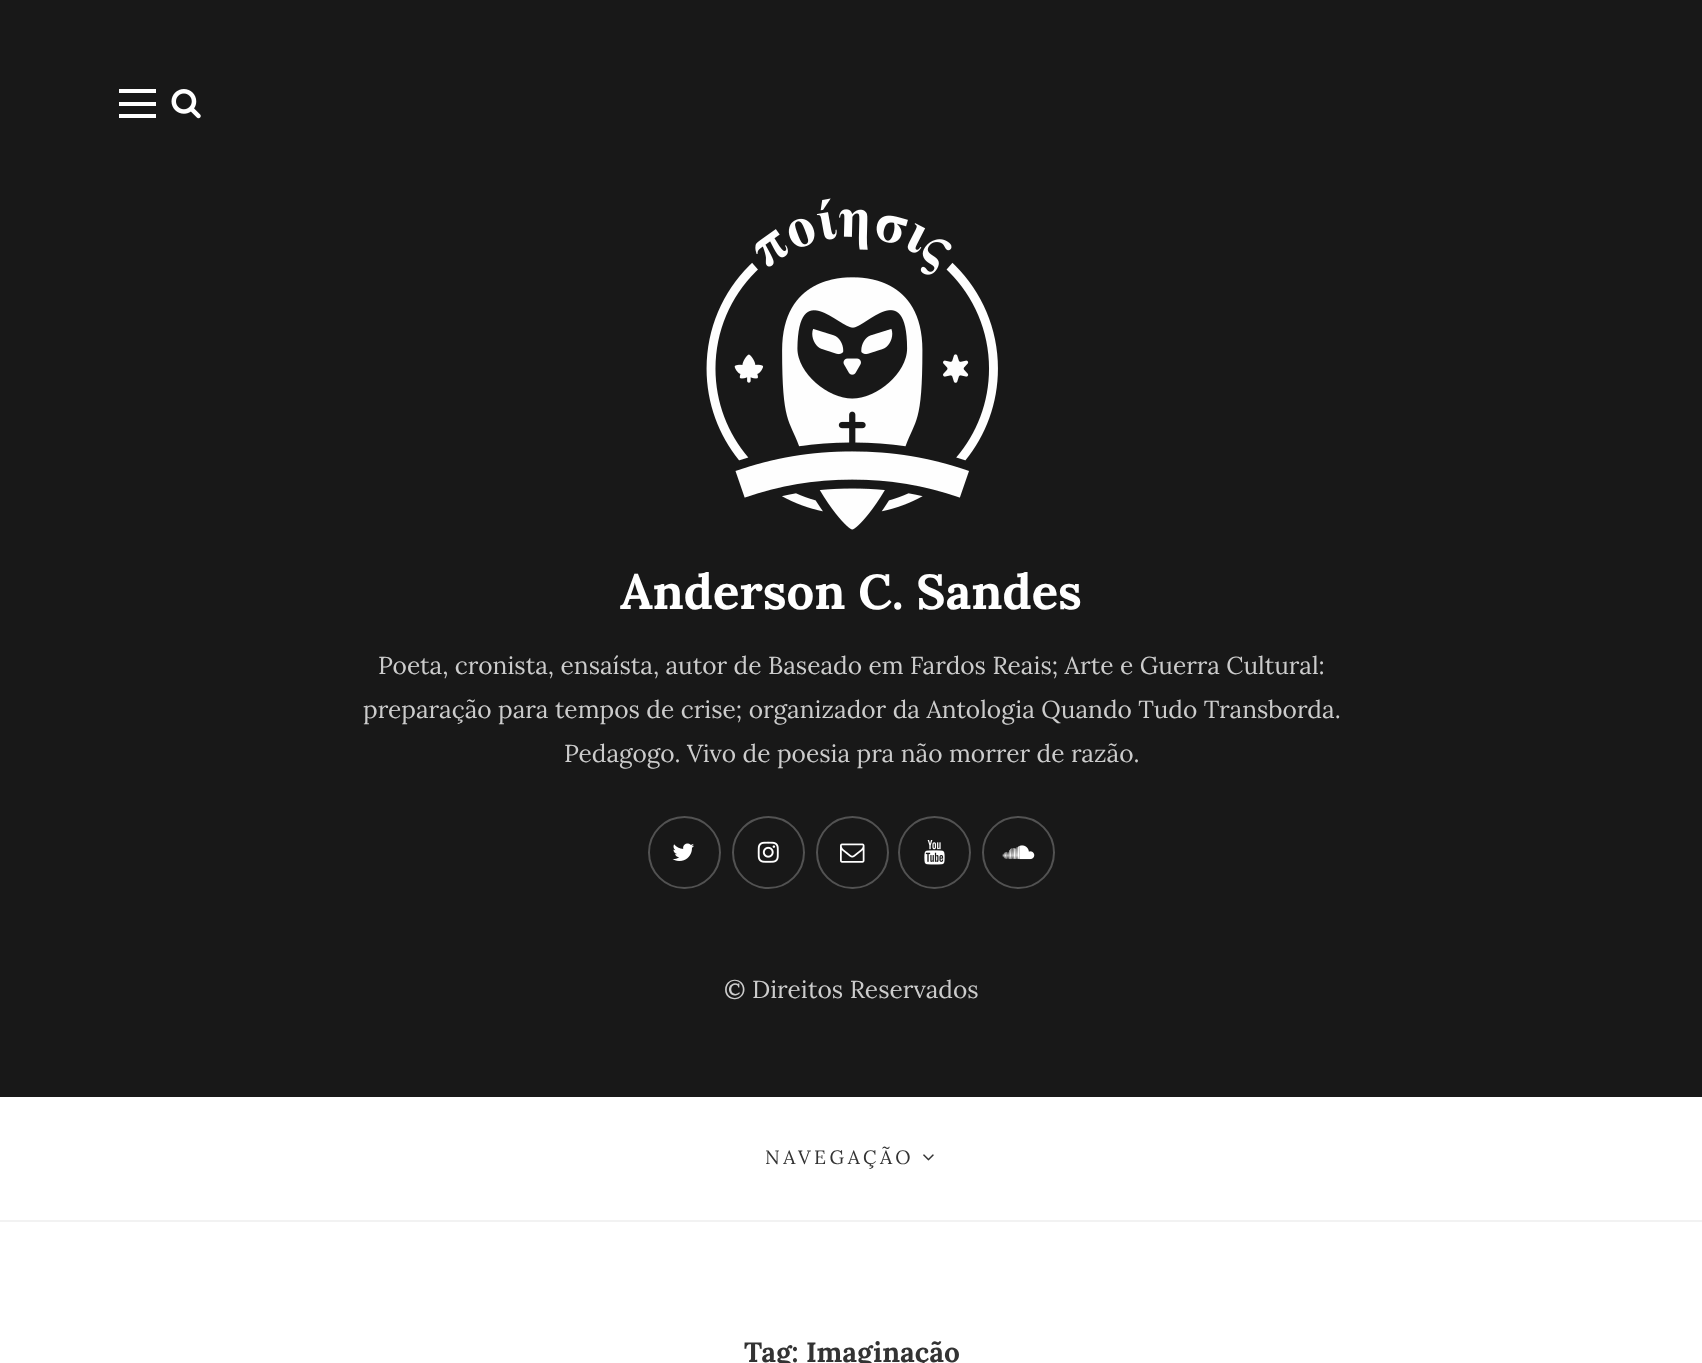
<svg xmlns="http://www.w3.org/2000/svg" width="1702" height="1363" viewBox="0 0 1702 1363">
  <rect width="100%" height="100%" fill="#fff"/>
  <path d="M0 0h1702v1097H0z" fill="#181818"/>
  <path d="M119 102h37v4H119z" fill="#fff"/>
  <path d="M119 89h37v4H119z" fill="#fff"/>
  <path d="M119 114h37v4H119z" fill="#fff"/>
  <image x="171" y="89" width="30" height="30" href="img/1.png"/>
  <image x="706" y="198" width="292" height="332" href="img/2.png"/>
  <circle cx="684.5" cy="852.5" r="35.5" fill="none" stroke="#525252" stroke-width="2"/>
  <image x="672" y="843" width="22" height="18" href="img/3.png"/>
  <circle cx="768.5" cy="852.5" r="35.5" fill="none" stroke="#525252" stroke-width="2"/>
  <image x="757" y="841" width="22" height="22" href="img/4.png"/>
  <circle cx="852.5" cy="852.5" r="35.5" fill="none" stroke="#525252" stroke-width="2"/>
  <image x="840" y="843" width="25" height="20" href="img/5.png"/>
  <circle cx="934.5" cy="852.5" r="35.5" fill="none" stroke="#525252" stroke-width="2"/>
  <image x="924" y="840" width="21" height="25" href="img/6.png"/>
  <circle cx="1018.5" cy="852.5" r="35.5" fill="none" stroke="#525252" stroke-width="2"/>
  <image x="1002" y="845" width="33" height="15" href="img/7.png"/>
  <path d="M0 1220h1702v2H0z" fill="#f2f2f2"/>
  <image x="923" y="1154" width="11" height="7" href="img/8.png"/>
  <text x="620" y="609" font-family="Lora" font-size="49" font-weight="bold" fill="#fff">Anderson C. Sandes</text>
  <g font-family="Lora" font-size="24.5" fill="#ccc">
    <text x="378" y="674">Poeta, cronista, ensaísta, autor de Baseado em Fardos Reais; Arte e Guerra Cultural:</text>
    <text x="363" y="718">preparação para tempos de crise; organizador da Antologia Quando Tudo Transborda.</text>
    <text x="564" y="762">Pedagogo. Vivo de poesia pra não morrer de razão.</text>
    <text x="724" y="998">© Direitos Reservados</text>
  </g>
  <text x="765" y="1164" font-family="Lora" font-size="19.25" letter-spacing="3.5" fill="#333">NAVEGAÇÃO</text>
  <text x="744" y="1362" font-family="Lora" font-size="28" font-weight="bold" fill="#333">Tag: Imaginação</text>
</svg>
